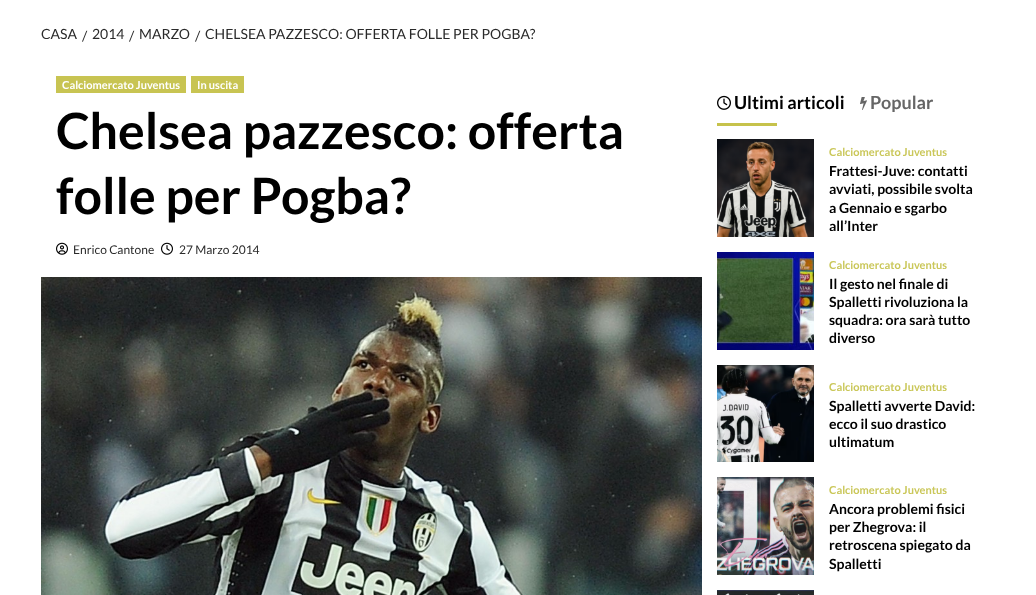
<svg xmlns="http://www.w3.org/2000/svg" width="1036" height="595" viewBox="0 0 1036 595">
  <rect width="100%" height="100%" fill="#fff"/>
  <path d="M56 76h130v17H56z" fill="#c8c452"/>
  <path d="M191 76h53v17H191z" fill="#c8c452"/>
  <image x="56" y="242" width="12" height="13" href="img/1.png"/>
  <image x="161" y="242" width="12" height="13" href="img/2.png"/>
  <image x="41" y="277" width="661" height="318" href="img/3.png"/>
  <image x="717" y="95" width="14" height="15" href="img/4.png"/>
  <path d="M717 123h60v3H717z" fill="#c6c24b"/>
  <image x="860" y="97" width="7" height="13" href="img/5.png"/>
  <image x="717" y="139" width="97" height="98" href="img/6.png"/>
  <image x="717" y="252" width="97" height="98" href="img/7.png"/>
  <image x="717" y="365" width="97" height="97" href="img/8.png"/>
  <image x="717" y="477" width="97" height="98" href="img/9.png"/>
  <image x="717" y="590" width="97" height="5" href="img/10.png"/>
  <g font-family="Lato" font-size="14" fill="#2a2a2a">
    <text x="41" y="39">CASA</text>
    <text x="82" y="41">/</text>
    <text x="92" y="39">2014</text>
    <text x="129" y="41">/</text>
    <text x="139" y="39">MARZO</text>
    <text x="195" y="41">/</text>
    <text x="205" y="39">CHELSEA PAZZESCO: OFFERTA FOLLE PER POGBA?</text>
  </g>
  <g font-family="Lato" font-size="11" font-weight="bold" fill="#fff">
    <text x="62" y="89">Calciomercato Juventus</text>
    <text x="197" y="89">In uscita</text>
  </g>
  <g font-family="Lato" font-size="50" font-weight="bold" fill="#000">
    <text x="56" y="149">Chelsea pazzesco: offerta</text>
    <text x="56" y="214">folle per Pogba?</text>
  </g>
  <g font-family="Lato" font-size="12" fill="#2a2a2a">
    <text x="73" y="254">Enrico Cantone</text>
    <text x="179" y="254">27 Marzo 2014</text>
  </g>
  <text x="734" y="109" font-family="Lato" font-size="18" font-weight="bold" fill="#000">Ultimi articoli</text>
  <text x="870" y="109" font-family="Lato" font-size="18" font-weight="bold" fill="#666">Popular</text>
  <text x="829" y="156" font-family="Lato" font-size="11" font-weight="bold" fill="#cac759">Calciomercato Juventus</text>
  <g font-family="Lato" font-size="14" font-weight="bold" fill="#000">
    <text x="829" y="176">Frattesi-Juve: contatti</text>
    <text x="829" y="194">avviati, possibile svolta</text>
    <text x="829" y="213">a Gennaio e sgarbo</text>
    <text x="829" y="231">all’Inter</text>
  </g>
  <text x="829" y="269" font-family="Lato" font-size="11" font-weight="bold" fill="#cac759">Calciomercato Juventus</text>
  <g font-family="Lato" font-size="14" font-weight="bold" fill="#000">
    <text x="829" y="289">Il gesto nel finale di</text>
    <text x="829" y="307">Spalletti rivoluziona la</text>
    <text x="829" y="325">squadra: ora sarà tutto</text>
    <text x="829" y="343">diverso</text>
  </g>
  <text x="829" y="391" font-family="Lato" font-size="11" font-weight="bold" fill="#cac759">Calciomercato Juventus</text>
  <g font-family="Lato" font-size="14" font-weight="bold" fill="#000">
    <text x="829" y="411">Spalletti avverte David:</text>
    <text x="829" y="429">ecco il suo drastico</text>
    <text x="829" y="447">ultimatum</text>
  </g>
  <text x="829" y="494" font-family="Lato" font-size="11" font-weight="bold" fill="#cac759">Calciomercato Juventus</text>
  <g font-family="Lato" font-size="14" font-weight="bold" fill="#000">
    <text x="829" y="514">Ancora problemi fisici</text>
    <text x="829" y="532">per Zhegrova: il</text>
    <text x="829" y="550">retroscena spiegato da</text>
    <text x="829" y="569">Spalletti</text>
  </g>
</svg>
